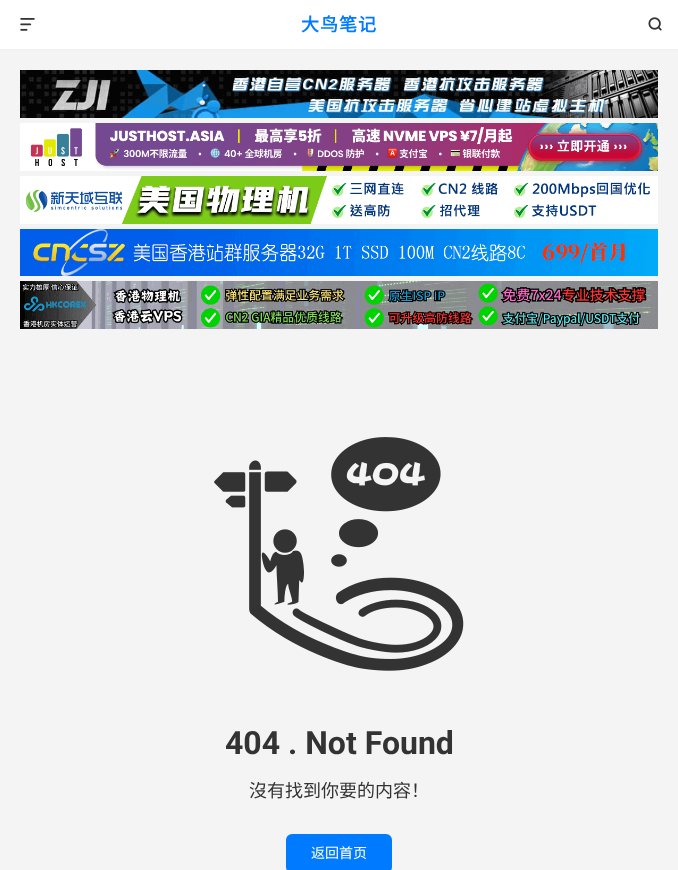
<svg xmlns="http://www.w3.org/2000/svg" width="678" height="870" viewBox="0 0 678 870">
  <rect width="100%" height="100%" fill="#f4f4f4"/>
  <path d="M0 0h678v50H0z" fill="#fff"/>
  <image x="20" y="18" width="15" height="13" href="img/1.png"/>
  <image x="648" y="17" width="14" height="14" href="img/2.png"/>
  <rect y="49" width="678" height="1" rx="0.5" fill="#eee"/>
  <image x="20" y="70" width="638" height="48" href="img/3.png"/>
  <image x="20" y="123" width="638" height="48" href="img/4.png"/>
  <image x="20" y="176" width="638" height="48" href="img/5.png"/>
  <image x="20" y="229" width="638" height="47" href="img/6.png"/>
  <image x="20" y="281" width="638" height="48" href="img/7.png"/>
  <image x="214" y="437" width="250" height="234" href="img/8.png"/>
  <rect x="286" y="834" width="106" height="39" rx="6" fill="#007bff"/>
  <text x="301" y="31" font-family="Noto Sans CJK SC" font-size="18" font-weight="bold" letter-spacing="1" fill="#007bff">大鸟笔记</text>
  <text x="225" y="754" font-family="Roboto" font-size="32" font-weight="bold" fill="#333">404 . Not Found</text>
  <text x="249" y="797" font-family="Noto Sans CJK SC" font-size="18" fill="#333">沒有找到你要的内容！</text>
  <text x="311" y="858" font-family="Noto Sans CJK SC" font-size="14" fill="#fff">返回首页</text>
</svg>
